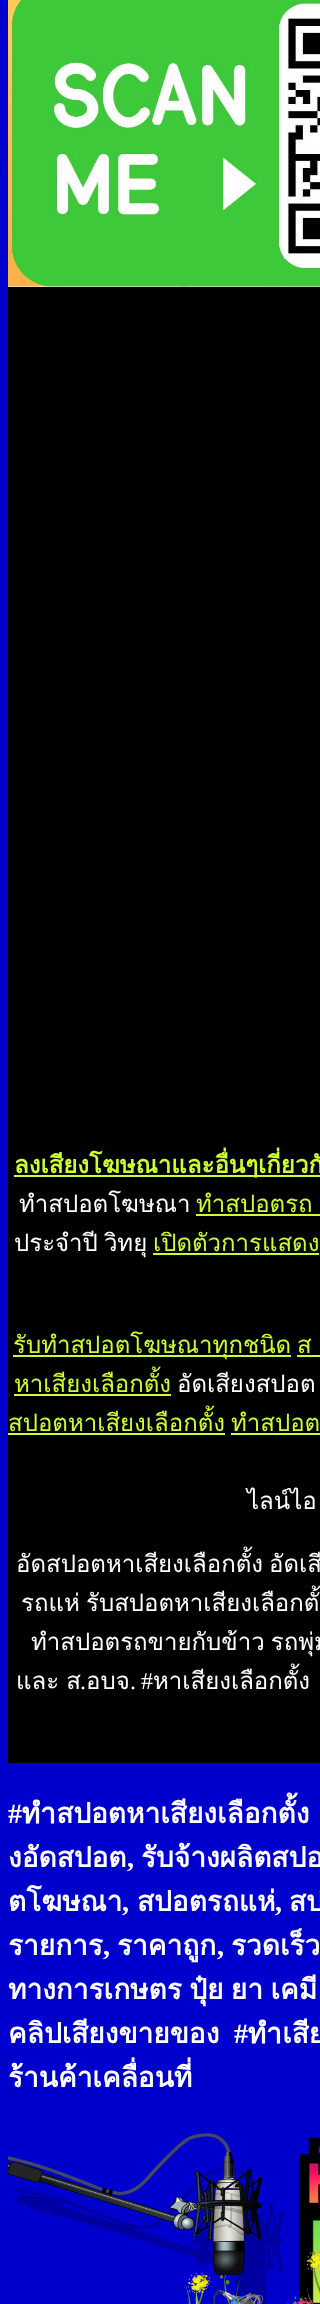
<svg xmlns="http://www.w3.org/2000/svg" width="320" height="2304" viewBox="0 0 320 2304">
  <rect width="100%" height="100%" fill="#00c"/>
  <path d="M8 287h312v1476H8z" fill="#000"/>
  <image x="8" y="0" width="312" height="287" href="img/1.png"/>
  <path d="M14 1175h306v2H14z" fill="#cf3"/>
  <path d="M196 1214h124v2H196z" fill="#cf3"/>
  <path d="M153 1253h166v2H153z" fill="#cf3"/>
  <path d="M13 1355h278v2H13z" fill="#cf3"/>
  <path d="M297 1355h23v2H297z" fill="#cf3"/>
  <path d="M14 1394h157v2H14z" fill="#cf3"/>
  <path d="M8 1433h217v2H8z" fill="#cf3"/>
  <path d="M231 1433h89v2H231z" fill="#cf3"/>
  <image x="8" y="2133" width="312" height="171" href="img/2.png"/>
  <text x="14" y="1173" font-family="Loma" font-size="24" font-weight="bold" fill="#cf3">ลงเสียงโฆษณาและอื่นๆเกี่ยวกั</text>
  <text x="19" y="1212" font-family="Loma" font-size="24" fill="#fff">ทำสปอตโฆษณา</text>
  <text x="196" y="1212" font-family="Loma" font-size="24" fill="#cf3">ทำสปอตรถ</text>
  <text x="14" y="1251" word-spacing="-2" font-family="Loma" font-size="24" fill="#fff">ประจำปี วิทยุ</text>
  <g font-family="Loma" font-size="24" fill="#cf3">
    <text x="153" y="1251">เปิดตัวการแสดง</text>
    <text x="13" y="1353">รับทำสปอตโฆษณาทุกชนิด</text>
    <text x="297" y="1353">ส</text>
    <text x="14" y="1392">หาเสียงเลือกตั้ง</text>
  </g>
  <text x="177" y="1392" font-family="Loma" font-size="24" fill="#fff">อัดเสียงสปอต</text>
  <g font-family="Loma" font-size="24" fill="#cf3">
    <text x="8" y="1431">สปอตหาเสียงเลือกตั้ง</text>
    <text x="231" y="1431">ทำสปอต</text>
  </g>
  <g font-family="Loma" font-size="24" fill="#fff">
    <text x="247" y="1509">ไลน์ไอ</text>
    <text x="16" y="1572" word-spacing="-2">อัดสปอตหาเสียงเลือกตั้ง อัดเสี</text>
    <text x="21" y="1611">รถแห่</text>
    <text x="86" y="1611" word-spacing="-2">รับสปอตหาเสียงเลือกตั้</text>
    <text x="31" y="1650" word-spacing="-2">ทำสปอตรถขายกับข้าว รถพุ่ม</text>
    <text x="16" y="1689" word-spacing="-1">และ ส</text>
  </g>
  <text x="80" y="1689" font-family="Liberation Serif" font-size="24" fill="#fff">.</text>
  <text x="86" y="1689" font-family="Loma" font-size="24" fill="#fff">อบจ</text>
  <g font-family="Liberation Serif" font-size="24" fill="#fff">
    <text x="130" y="1689">.</text>
    <text x="141" y="1689">#</text>
  </g>
  <text x="153" y="1689" font-family="Loma" font-size="24" fill="#fff">หาเสียงเลือกตั้ง</text>
  <text x="8" y="1823" font-family="Liberation Serif" font-size="28" font-weight="bold" fill="#fff">#</text>
  <g font-family="Loma" font-size="28" font-weight="bold" fill="#fff">
    <text x="22" y="1823">ทำสปอตหาเสียงเลือกตั้ง</text>
    <text x="8" y="1867">งอัดสปอต</text>
  </g>
  <text x="127" y="1867" font-family="Liberation Serif" font-size="28" font-weight="bold" fill="#fff">,</text>
  <g font-family="Loma" font-size="28" font-weight="bold" fill="#fff">
    <text x="141" y="1867">รับจ้างผลิตสปอ</text>
    <text x="8" y="1911">ตโฆษณา</text>
  </g>
  <text x="122" y="1911" font-family="Liberation Serif" font-size="28" font-weight="bold" fill="#fff">,</text>
  <text x="137" y="1911" font-family="Loma" font-size="28" font-weight="bold" fill="#fff">สปอตรถแห่</text>
  <text x="275" y="1911" font-family="Liberation Serif" font-size="28" font-weight="bold" fill="#fff">,</text>
  <g font-family="Loma" font-size="28" font-weight="bold" fill="#fff">
    <text x="289" y="1911">สป</text>
    <text x="8" y="1955">รายการ</text>
  </g>
  <text x="103" y="1955" font-family="Liberation Serif" font-size="28" font-weight="bold" fill="#fff">,</text>
  <text x="117" y="1955" font-family="Loma" font-size="28" font-weight="bold" fill="#fff">ราคาถูก</text>
  <text x="217" y="1955" font-family="Liberation Serif" font-size="28" font-weight="bold" fill="#fff">,</text>
  <g font-family="Loma" font-size="28" font-weight="bold" fill="#fff">
    <text x="231" y="1955">รวดเร็ว</text>
    <text x="8" y="1999" word-spacing="-2">ทางการเกษตร ปุ๋ย ยา เคมี</text>
    <text x="8" y="2043">คลิปเสียงขายของ</text>
  </g>
  <text x="234" y="2043" font-family="Liberation Serif" font-size="28" font-weight="bold" fill="#fff">#</text>
  <g font-family="Loma" font-size="28" font-weight="bold" fill="#fff">
    <text x="248" y="2043">ทำเสีย</text>
    <text x="8" y="2087">ร้านค้าเคลื่อนที่</text>
  </g>
</svg>
